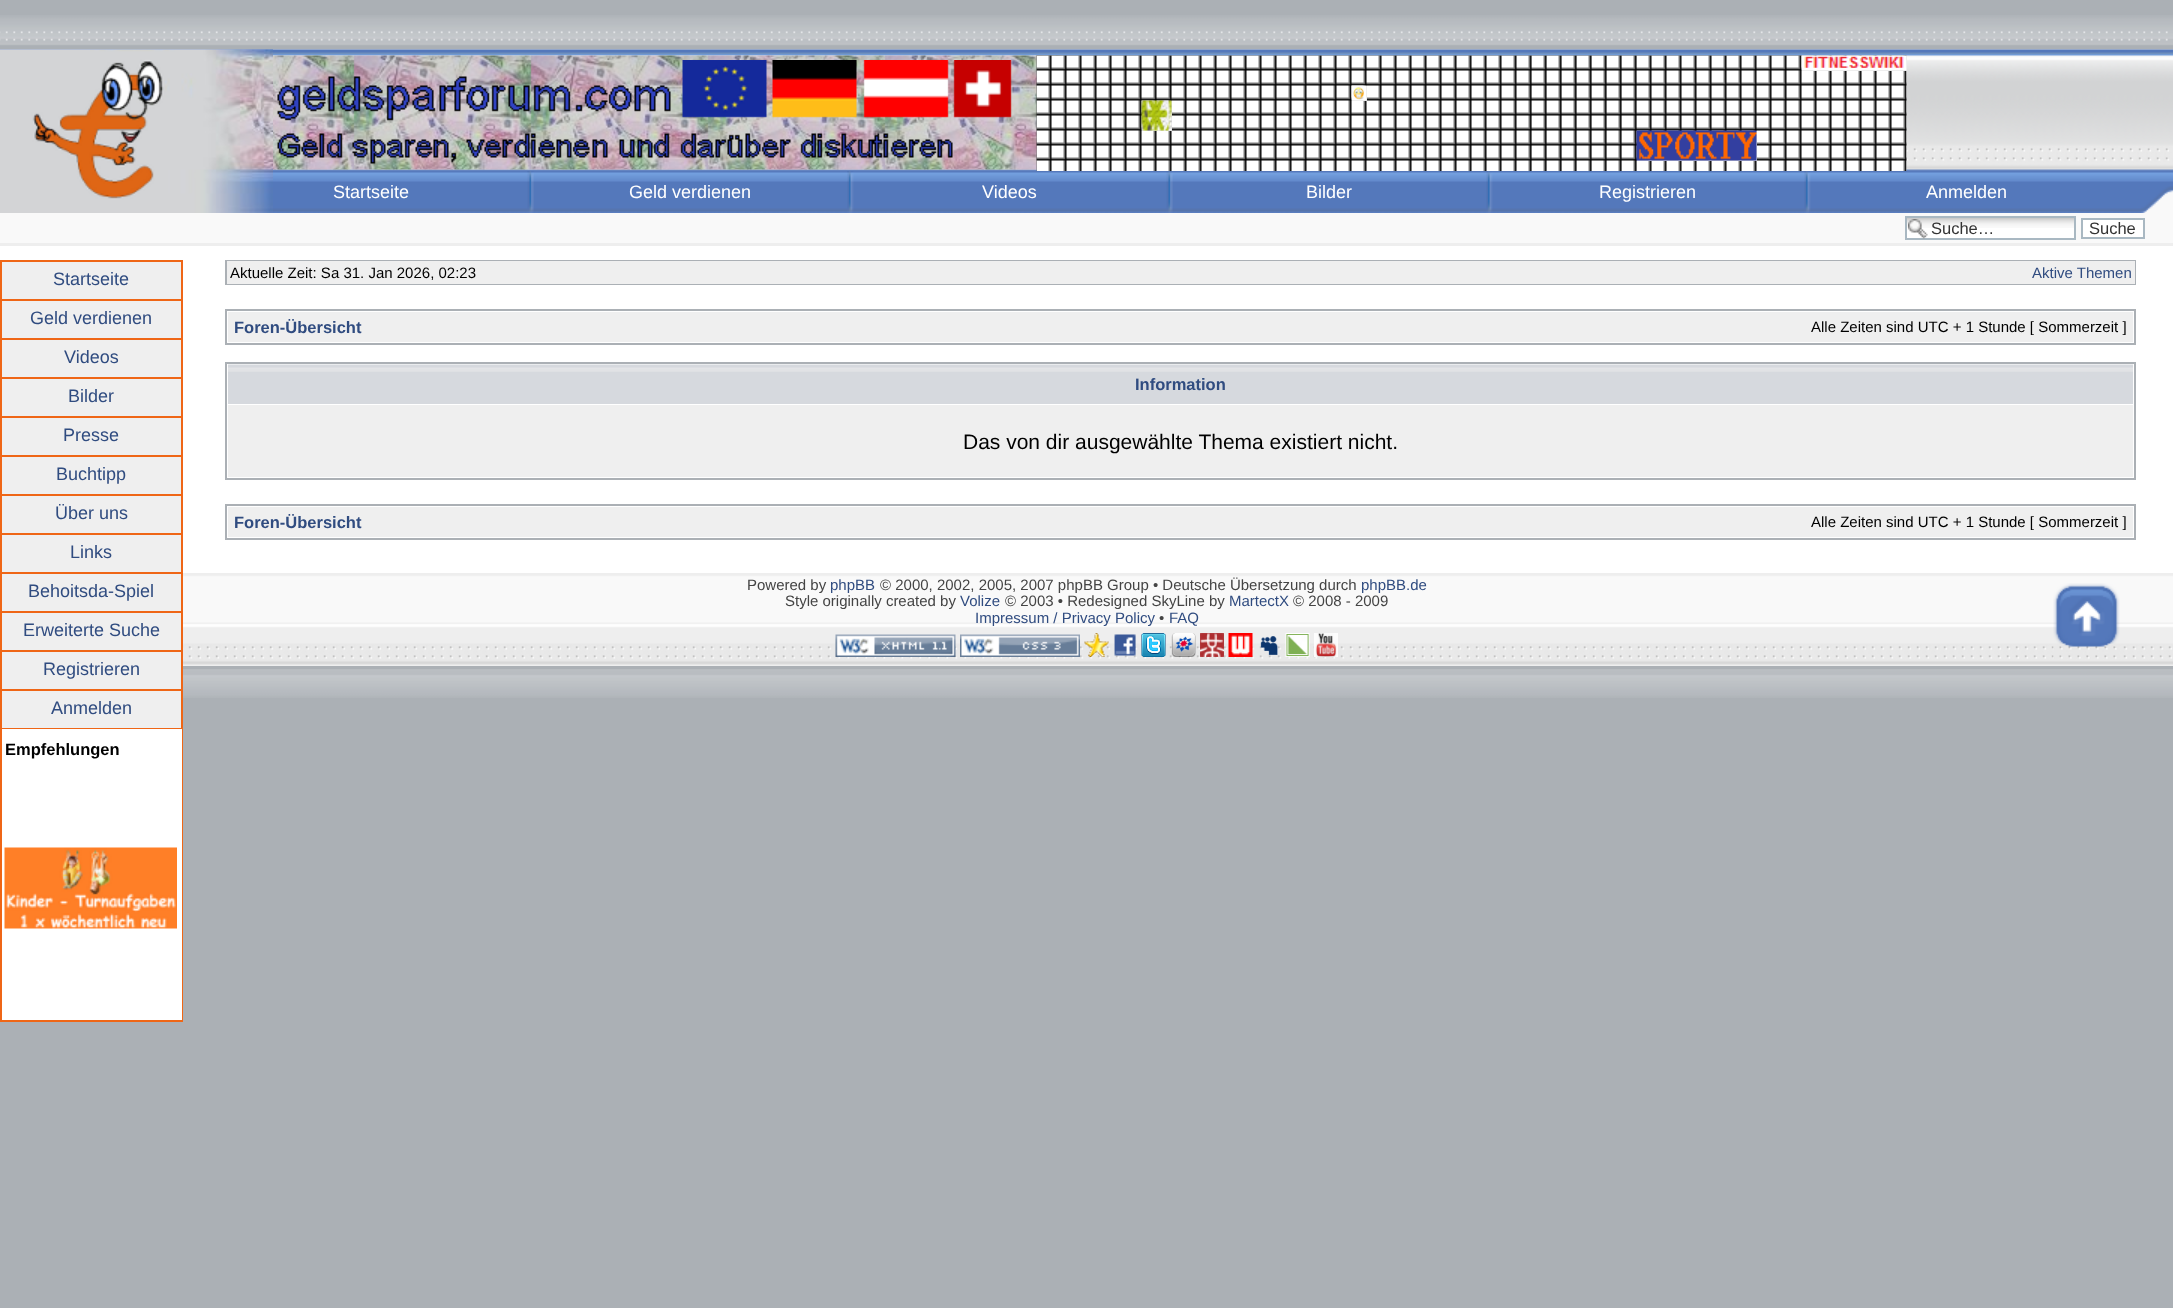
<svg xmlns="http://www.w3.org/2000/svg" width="2173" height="1308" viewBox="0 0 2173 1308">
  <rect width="100%" height="100%" fill="#abb0b5"/>
  <path d="M0 49h2173v524H0z" fill="#fff"/>
  <image x="0" y="15" width="2173" height="35" href="img/1.png"/>
  <image x="0" y="49" width="2173" height="164" href="img/2.png"/>
  <image x="0" y="49" width="273" height="164" href="img/3.png"/>
  <image x="273" y="55" width="789" height="115" href="img/4.png"/>
  <image x="1036" y="55" width="871" height="116" href="img/5.png"/>
  <path d="M1802 56h105v15H1802z" fill="#ddd"/>
  <image x="1801" y="55" width="106" height="16" href="img/6.png"/>
  <path d="M1352 86h15v15H1352z" fill="#ddd"/>
  <image x="1351" y="85" width="16" height="16" href="img/7.png"/>
  <path d="M1142 101h30v30H1142z" fill="#ddd"/>
  <image x="1141" y="100" width="31" height="31" href="img/8.png"/>
  <path d="M1637 131h120v30H1637z" fill="#ddd"/>
  <image x="1636" y="130" width="121" height="31" href="img/9.png"/>
  <image x="277" y="60" width="735" height="104" href="img/10.png"/>
  <image x="1036" y="171" width="871" height="5" href="img/11.png"/>
  <image x="527" y="171" width="7" height="42" href="img/12.png"/>
  <image x="847" y="171" width="7" height="42" href="img/13.png"/>
  <image x="1166" y="171" width="7" height="42" href="img/12.png"/>
  <image x="1486" y="171" width="7" height="42" href="img/14.png"/>
  <image x="1804" y="171" width="7" height="42" href="img/14.png"/>
  <image x="2141" y="186" width="32" height="27" href="img/15.png"/>
  <path d="M0 213h2173v30H0z" fill="#f9f9f9"/>
  <path d="M0 243h2173v3H0z" fill="#eee"/>
  <path d="M1907 228h167v10H1907z" fill="#fff"/>
  <image x="1907" y="218" width="167" height="10" href="img/17.png"/>
  <path d="M1906 217h169v22H1906z" fill="none" stroke="#a9b8c2" stroke-width="2"/>
  <image x="1908" y="219" width="20" height="20" href="img/16.png"/>
  <path d="M2082 219h62v19H2082z" fill="#fff" stroke="#a9b8c2" stroke-width="2"/>
  <path d="M2 262h179v466H2z" fill="#efefef"/>
  <path d="M1 261h181v760H1z" fill="none" stroke="#ef6616" stroke-width="2"/>
  <path d="M2 299h180v2H2z" fill="#ef6616"/>
  <path d="M2 338h180v2H2z" fill="#ef6616"/>
  <path d="M2 377h180v2H2z" fill="#ef6616"/>
  <path d="M2 416h180v2H2z" fill="#ef6616"/>
  <path d="M2 455h180v2H2z" fill="#ef6616"/>
  <path d="M2 494h180v2H2z" fill="#ef6616"/>
  <path d="M2 533h180v2H2z" fill="#ef6616"/>
  <path d="M2 572h180v2H2z" fill="#ef6616"/>
  <path d="M2 611h180v2H2z" fill="#ef6616"/>
  <path d="M2 650h180v2H2z" fill="#ef6616"/>
  <path d="M2 689h180v2H2z" fill="#ef6616"/>
  <path d="M2 728h180v1H2z" fill="#ef6616"/>
  <path d="M2 729h180v291H2z" fill="#fff"/>
  <image x="4" y="847" width="173" height="82" href="img/18.png"/>
  <path d="M226 261h1909v23H226z" fill="none" stroke="#abb0b5" stroke-width="2"/>
  <path d="M227 261h1908v23H227z" fill="#efefef"/>
  <path d="M226 310h1909v34H226z" fill="none" stroke="#abb0b5" stroke-width="2"/>
  <path d="M228 312h1905v30H228z" fill="#efefef"/>
  <path d="M226 363h1909v116H226z" fill="none" stroke="#abb0b5" stroke-width="2"/>
  <path d="M228 372h1905v32H228z" fill="#d6d9de"/>
  <image x="228" y="364" width="1905" height="8" href="img/19.png"/>
  <path d="M228 405h1905v72H228z" fill="#efefef"/>
  <path d="M226 505h1909v34H226z" fill="none" stroke="#abb0b5" stroke-width="2"/>
  <path d="M228 507h1905v30H228z" fill="#efefef"/>
  <image x="183" y="573" width="1990" height="93" href="img/20.png"/>
  <image x="835" y="634" width="121" height="23" href="img/21.png"/>
  <image x="960" y="634" width="120" height="23" href="img/22.png"/>
  <image x="1084" y="633" width="25" height="24" href="img/23.png"/>
  <image x="1114" y="634" width="22" height="22" href="img/24.png"/>
  <image x="1141" y="633" width="25" height="24" href="img/25.png"/>
  <image x="1171" y="633" width="25" height="24" href="img/26.png"/>
  <image x="1200" y="633" width="24" height="24" href="img/27.png"/>
  <image x="1228" y="633" width="25" height="24" href="img/28.png"/>
  <image x="1260" y="636" width="18" height="19" href="img/29.png"/>
  <image x="1285" y="633" width="25" height="24" href="img/30.png"/>
  <image x="1314" y="633" width="24" height="24" href="img/31.png"/>
  <image x="2053" y="583" width="67" height="76" href="img/32.png"/>
  <image x="183" y="669" width="1990" height="29" href="img/33.png"/>
  <g font-family="Liberation Sans" font-size="18" fill="#fff">
    <text x="333" y="198">Startseite</text>
    <text x="629" y="198">Geld verdienen</text>
    <text x="982" y="198">Videos</text>
    <text x="1306" y="198">Bilder</text>
    <text x="1599" y="198">Registrieren</text>
    <text x="1926" y="198">Anmelden</text>
  </g>
  <g font-family="Liberation Sans" font-size="16.5" fill="#333">
    <text x="1931" y="234">Suche…</text>
    <text x="2089" y="234">Suche</text>
  </g>
  <g font-family="Liberation Sans" font-size="18" fill="#304c80">
    <text x="53" y="285">Startseite</text>
    <text x="30" y="324">Geld verdienen</text>
    <text x="64" y="363">Videos</text>
    <text x="68" y="402">Bilder</text>
    <text x="63" y="441">Presse</text>
    <text x="56" y="480">Buchtipp</text>
    <text x="55" y="519">Über uns</text>
    <text x="70" y="558">Links</text>
    <text x="28" y="597">Behoitsda-Spiel</text>
    <text x="23" y="636">Erweiterte Suche</text>
    <text x="43" y="675">Registrieren</text>
    <text x="51" y="714">Anmelden</text>
  </g>
  <text x="5" y="755" font-family="Liberation Sans" font-size="16.5" font-weight="bold" fill="#000">Empfehlungen</text>
  <text x="230" y="278" font-family="Liberation Sans" font-size="15" fill="#000">Aktuelle Zeit: Sa 31. Jan 2026, 02:23</text>
  <text x="2032" y="278" font-family="Liberation Sans" font-size="15" fill="#304c80">Aktive Themen</text>
  <text x="234" y="333" font-family="Liberation Sans" font-size="16.5" font-weight="bold" fill="#304c80">Foren-Übersicht</text>
  <text x="1811" y="332" font-family="Liberation Sans" font-size="15" fill="#000">Alle Zeiten sind UTC + 1 Stunde [ Sommerzeit ]</text>
  <text x="1135" y="390" font-family="Liberation Sans" font-size="16.5" font-weight="bold" fill="#304c80">Information</text>
  <text x="963" y="449" font-family="Liberation Sans" font-size="21" fill="#000">Das von dir ausgewählte Thema existiert nicht.</text>
  <text x="234" y="528" font-family="Liberation Sans" font-size="16.5" font-weight="bold" fill="#304c80">Foren-Übersicht</text>
  <text x="1811" y="527" font-family="Liberation Sans" font-size="15" fill="#000">Alle Zeiten sind UTC + 1 Stunde [ Sommerzeit ]</text>
  <text x="747" y="590" font-family="Liberation Sans" font-size="15" fill="#444">Powered by</text>
  <text x="830" y="590" font-family="Liberation Sans" font-size="15" fill="#304c80">phpBB</text>
  <text x="880" y="590" font-family="Liberation Sans" font-size="15" fill="#444">© 2000, 2002, 2005, 2007 phpBB Group • Deutsche Übersetzung durch</text>
  <text x="1361" y="590" font-family="Liberation Sans" font-size="15" fill="#304c80">phpBB.de</text>
  <text x="785" y="606" font-family="Liberation Sans" font-size="15" fill="#444">Style originally created by</text>
  <text x="960" y="606" font-family="Liberation Sans" font-size="15" fill="#304c80">Volize</text>
  <text x="1005" y="606" font-family="Liberation Sans" font-size="15" fill="#444">© 2003 • Redesigned SkyLine by</text>
  <text x="1229" y="606" font-family="Liberation Sans" font-size="15" fill="#304c80">MartectX</text>
  <text x="1293" y="606" font-family="Liberation Sans" font-size="15" fill="#444">© 2008 - 2009</text>
  <text x="975" y="623" font-family="Liberation Sans" font-size="15" fill="#304c80">Impressum / Privacy Policy</text>
  <text x="1159" y="623" font-family="Liberation Sans" font-size="15" fill="#444">•</text>
  <text x="1169" y="623" font-family="Liberation Sans" font-size="15" fill="#304c80">FAQ</text>
</svg>
